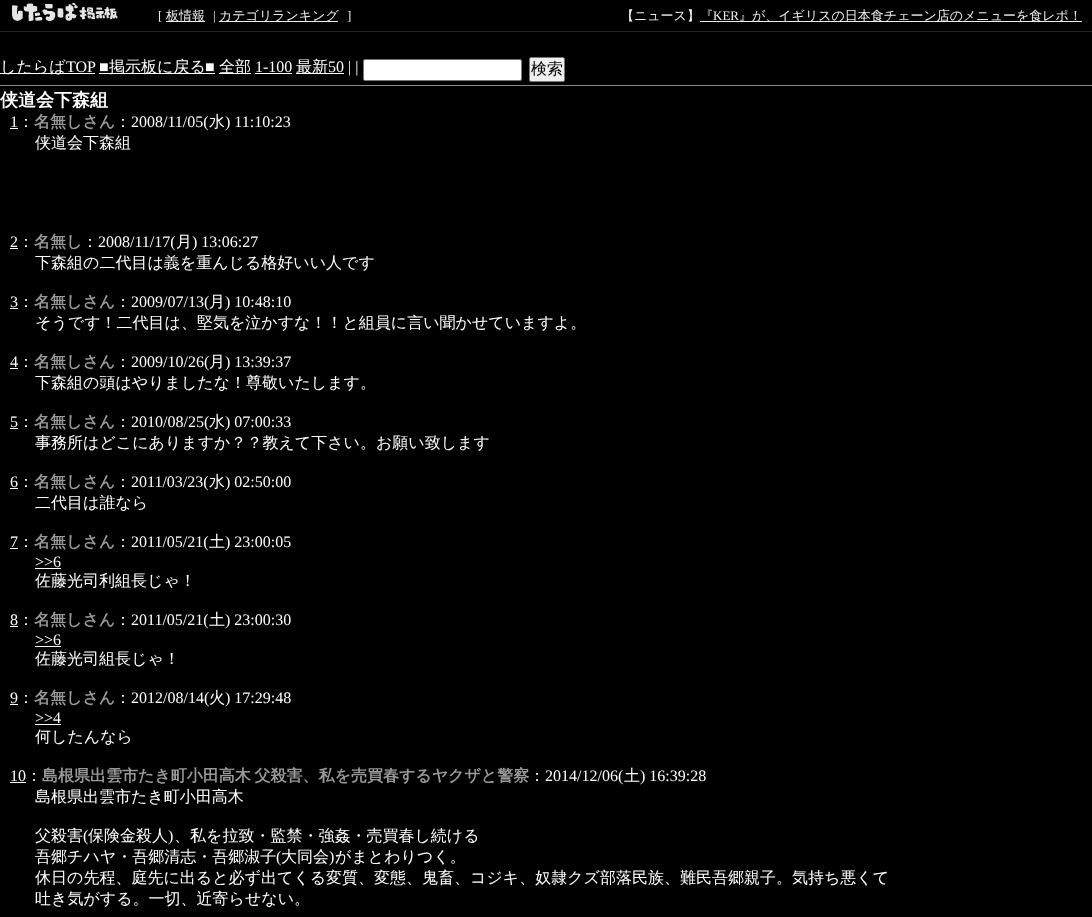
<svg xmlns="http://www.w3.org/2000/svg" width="1092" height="917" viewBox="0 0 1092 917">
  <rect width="100%" height="100%" fill="#000"/>
  <path d="M0 31h1092v1H0z" fill="#222"/>
  <image x="12" y="3" width="106" height="18" href="img/1.png"/>
  <path d="M166 21h39v1H166z" fill="#eee"/>
  <path d="M219 21h119v1H219z" fill="#eee"/>
  <path d="M700 21h382v1H700z" fill="#eee"/>
  <path d="M0 85h1092v1H0z" fill="#888"/>
  <path d="M0 73h95v1H0z" fill="#fff"/>
  <path d="M99 73h116v1H99z" fill="#fff"/>
  <path d="M219 73h32v1H219z" fill="#fff"/>
  <path d="M255 73h37v1H255z" fill="#fff"/>
  <path d="M296 73h48v1H296z" fill="#fff"/>
  <rect x="363.5" y="59.5" width="158" height="21" rx="1.5" fill="#fff" stroke="#767676"/>
  <rect x="529.5" y="57.5" width="35" height="24" rx="1.5" fill="#efefef" stroke="#767676"/>
  <path d="M10 128h8v1H10z" fill="#fff"/>
  <path d="M10 248h8v1H10z" fill="#fff"/>
  <path d="M10 308h8v1H10z" fill="#fff"/>
  <path d="M10 368h8v1H10z" fill="#fff"/>
  <path d="M10 428h8v1H10z" fill="#fff"/>
  <path d="M10 488h8v1H10z" fill="#fff"/>
  <path d="M10 548h8v1H10z" fill="#fff"/>
  <path d="M35 568h26v1H35z" fill="#fff"/>
  <path d="M10 626h8v1H10z" fill="#fff"/>
  <path d="M35 646h26v1H35z" fill="#fff"/>
  <path d="M10 704h8v1H10z" fill="#fff"/>
  <path d="M35 724h26v1H35z" fill="#fff"/>
  <path d="M10 782h16v1H10z" fill="#fff"/>
  <text x="158" y="20" font-family="Liberation Serif" font-size="13" fill="#eee">[</text>
  <text x="166" y="20" font-family="WenQuanYi Zen Hei" font-size="13" font-weight="500" fill="#eee">板情報</text>
  <text x="213" y="20" font-family="Liberation Serif" font-size="13" fill="#eee">|</text>
  <text x="219" y="20" font-family="WenQuanYi Zen Hei" font-size="13" font-weight="500" fill="#eee">カテゴリランキング</text>
  <text x="347" y="20" font-family="Liberation Serif" font-size="13" fill="#eee">]</text>
  <text x="621" y="20" font-family="WenQuanYi Zen Hei" font-size="13" font-weight="500" fill="#eee">【ニュース】『</text>
  <text x="713" y="20" font-family="Liberation Serif" font-size="13" fill="#eee">KER</text>
  <text x="739" y="20" font-family="WenQuanYi Zen Hei" font-size="13" font-weight="500" fill="#eee">』が、イギリスの日本食チェーン店のメニューを食レポ！</text>
  <text x="0" y="72" font-family="WenQuanYi Zen Hei" font-size="16" font-weight="500" fill="#fff">したらば</text>
  <g font-family="Liberation Serif" font-size="16" fill="#fff">
    <text x="66" y="72">TOP</text>
    <text x="99" y="72">■</text>
  </g>
  <text x="109" y="72" font-family="WenQuanYi Zen Hei" font-size="16" font-weight="500" fill="#fff">掲示板に戻る</text>
  <text x="205" y="72" font-family="Liberation Serif" font-size="16" fill="#fff">■</text>
  <text x="219" y="72" font-family="WenQuanYi Zen Hei" font-size="16" font-weight="500" fill="#fff">全部</text>
  <text x="255" y="72" font-family="Liberation Serif" font-size="16" fill="#fff">1-100</text>
  <text x="296" y="72" font-family="WenQuanYi Zen Hei" font-size="16" font-weight="500" fill="#fff">最新</text>
  <text x="328" y="72" font-family="Liberation Serif" font-size="16" fill="#fff">50 | |</text>
  <text x="531" y="74" font-family="WenQuanYi Zen Hei" font-size="16" font-weight="500" fill="#000">検索</text>
  <text x="0" y="106" font-family="WenQuanYi Zen Hei" font-size="18" font-weight="bold" fill="#fff">侠道会下森組</text>
  <text x="10" y="127" font-family="Liberation Serif" font-size="16" fill="#fff">1</text>
  <text x="18" y="127" font-family="WenQuanYi Zen Hei" font-size="16" font-weight="500" fill="#fff">：</text>
  <text x="34" y="127" font-family="WenQuanYi Zen Hei" font-size="16" font-weight="bold" fill="#999">名無しさん</text>
  <text x="115" y="127" font-family="WenQuanYi Zen Hei" font-size="16" font-weight="500" fill="#fff">：</text>
  <text x="131" y="127" font-family="Liberation Serif" font-size="16" fill="#fff">2008/11/05(</text>
  <text x="209" y="127" font-family="WenQuanYi Zen Hei" font-size="16" font-weight="500" fill="#fff">水</text>
  <text x="225" y="127" font-family="Liberation Serif" font-size="16" fill="#fff">) 11:10:23</text>
  <text x="35" y="148" font-family="WenQuanYi Zen Hei" font-size="16" font-weight="500" fill="#fff">侠道会下森組</text>
  <text x="10" y="247" font-family="Liberation Serif" font-size="16" fill="#fff">2</text>
  <text x="18" y="247" font-family="WenQuanYi Zen Hei" font-size="16" font-weight="500" fill="#fff">：</text>
  <text x="34" y="247" font-family="WenQuanYi Zen Hei" font-size="16" font-weight="bold" fill="#999">名無し</text>
  <text x="82" y="247" font-family="WenQuanYi Zen Hei" font-size="16" font-weight="500" fill="#fff">：</text>
  <text x="98" y="247" font-family="Liberation Serif" font-size="16" fill="#fff">2008/11/17(</text>
  <text x="176" y="247" font-family="WenQuanYi Zen Hei" font-size="16" font-weight="500" fill="#fff">月</text>
  <text x="192" y="247" font-family="Liberation Serif" font-size="16" fill="#fff">) 13:06:27</text>
  <text x="35" y="268" font-family="WenQuanYi Zen Hei" font-size="16" font-weight="500" fill="#fff">下森組の二代目は義を重んじる格好いい人です</text>
  <text x="10" y="307" font-family="Liberation Serif" font-size="16" fill="#fff">3</text>
  <text x="18" y="307" font-family="WenQuanYi Zen Hei" font-size="16" font-weight="500" fill="#fff">：</text>
  <text x="34" y="307" font-family="WenQuanYi Zen Hei" font-size="16" font-weight="bold" fill="#999">名無しさん</text>
  <text x="115" y="307" font-family="WenQuanYi Zen Hei" font-size="16" font-weight="500" fill="#fff">：</text>
  <text x="131" y="307" font-family="Liberation Serif" font-size="16" fill="#fff">2009/07/13(</text>
  <text x="209" y="307" font-family="WenQuanYi Zen Hei" font-size="16" font-weight="500" fill="#fff">月</text>
  <text x="225" y="307" font-family="Liberation Serif" font-size="16" fill="#fff">) 10:48:10</text>
  <text x="35" y="328" font-family="WenQuanYi Zen Hei" font-size="16" font-weight="500" fill="#fff">そうです！二代目は、堅気を泣かすな！！と組員に言い聞かせていますよ。</text>
  <text x="10" y="367" font-family="Liberation Serif" font-size="16" fill="#fff">4</text>
  <text x="18" y="367" font-family="WenQuanYi Zen Hei" font-size="16" font-weight="500" fill="#fff">：</text>
  <text x="34" y="367" font-family="WenQuanYi Zen Hei" font-size="16" font-weight="bold" fill="#999">名無しさん</text>
  <text x="115" y="367" font-family="WenQuanYi Zen Hei" font-size="16" font-weight="500" fill="#fff">：</text>
  <text x="131" y="367" font-family="Liberation Serif" font-size="16" fill="#fff">2009/10/26(</text>
  <text x="209" y="367" font-family="WenQuanYi Zen Hei" font-size="16" font-weight="500" fill="#fff">月</text>
  <text x="225" y="367" font-family="Liberation Serif" font-size="16" fill="#fff">) 13:39:37</text>
  <text x="35" y="388" font-family="WenQuanYi Zen Hei" font-size="16" font-weight="500" fill="#fff">下森組の頭はやりましたな！尊敬いたします。</text>
  <text x="10" y="427" font-family="Liberation Serif" font-size="16" fill="#fff">5</text>
  <text x="18" y="427" font-family="WenQuanYi Zen Hei" font-size="16" font-weight="500" fill="#fff">：</text>
  <text x="34" y="427" font-family="WenQuanYi Zen Hei" font-size="16" font-weight="bold" fill="#999">名無しさん</text>
  <text x="115" y="427" font-family="WenQuanYi Zen Hei" font-size="16" font-weight="500" fill="#fff">：</text>
  <text x="131" y="427" font-family="Liberation Serif" font-size="16" fill="#fff">2010/08/25(</text>
  <text x="209" y="427" font-family="WenQuanYi Zen Hei" font-size="16" font-weight="500" fill="#fff">水</text>
  <text x="225" y="427" font-family="Liberation Serif" font-size="16" fill="#fff">) 07:00:33</text>
  <text x="35" y="448" font-family="WenQuanYi Zen Hei" font-size="16" font-weight="500" fill="#fff">事務所はどこにありますか？？教えて下さい。お願い致します</text>
  <text x="10" y="487" font-family="Liberation Serif" font-size="16" fill="#fff">6</text>
  <text x="18" y="487" font-family="WenQuanYi Zen Hei" font-size="16" font-weight="500" fill="#fff">：</text>
  <text x="34" y="487" font-family="WenQuanYi Zen Hei" font-size="16" font-weight="bold" fill="#999">名無しさん</text>
  <text x="115" y="487" font-family="WenQuanYi Zen Hei" font-size="16" font-weight="500" fill="#fff">：</text>
  <text x="131" y="487" font-family="Liberation Serif" font-size="16" fill="#fff">2011/03/23(</text>
  <text x="209" y="487" font-family="WenQuanYi Zen Hei" font-size="16" font-weight="500" fill="#fff">水</text>
  <text x="225" y="487" font-family="Liberation Serif" font-size="16" fill="#fff">) 02:50:00</text>
  <text x="35" y="508" font-family="WenQuanYi Zen Hei" font-size="16" font-weight="500" fill="#fff">二代目は誰なら</text>
  <text x="10" y="547" font-family="Liberation Serif" font-size="16" fill="#fff">7</text>
  <text x="18" y="547" font-family="WenQuanYi Zen Hei" font-size="16" font-weight="500" fill="#fff">：</text>
  <text x="34" y="547" font-family="WenQuanYi Zen Hei" font-size="16" font-weight="bold" fill="#999">名無しさん</text>
  <text x="115" y="547" font-family="WenQuanYi Zen Hei" font-size="16" font-weight="500" fill="#fff">：</text>
  <text x="131" y="547" font-family="Liberation Serif" font-size="16" fill="#fff">2011/05/21(</text>
  <text x="209" y="547" font-family="WenQuanYi Zen Hei" font-size="16" font-weight="500" fill="#fff">土</text>
  <g font-family="Liberation Serif" font-size="16" fill="#fff">
    <text x="225" y="547">) 23:00:05</text>
    <text x="35" y="567">&gt;&gt;6</text>
  </g>
  <text x="35" y="586" font-family="WenQuanYi Zen Hei" font-size="16" font-weight="500" fill="#fff">佐藤光司利組長じゃ！</text>
  <text x="10" y="625" font-family="Liberation Serif" font-size="16" fill="#fff">8</text>
  <text x="18" y="625" font-family="WenQuanYi Zen Hei" font-size="16" font-weight="500" fill="#fff">：</text>
  <text x="34" y="625" font-family="WenQuanYi Zen Hei" font-size="16" font-weight="bold" fill="#999">名無しさん</text>
  <text x="115" y="625" font-family="WenQuanYi Zen Hei" font-size="16" font-weight="500" fill="#fff">：</text>
  <text x="131" y="625" font-family="Liberation Serif" font-size="16" fill="#fff">2011/05/21(</text>
  <text x="209" y="625" font-family="WenQuanYi Zen Hei" font-size="16" font-weight="500" fill="#fff">土</text>
  <g font-family="Liberation Serif" font-size="16" fill="#fff">
    <text x="225" y="625">) 23:00:30</text>
    <text x="35" y="645">&gt;&gt;6</text>
  </g>
  <text x="35" y="664" font-family="WenQuanYi Zen Hei" font-size="16" font-weight="500" fill="#fff">佐藤光司組長じゃ！</text>
  <text x="10" y="703" font-family="Liberation Serif" font-size="16" fill="#fff">9</text>
  <text x="18" y="703" font-family="WenQuanYi Zen Hei" font-size="16" font-weight="500" fill="#fff">：</text>
  <text x="34" y="703" font-family="WenQuanYi Zen Hei" font-size="16" font-weight="bold" fill="#999">名無しさん</text>
  <text x="115" y="703" font-family="WenQuanYi Zen Hei" font-size="16" font-weight="500" fill="#fff">：</text>
  <text x="131" y="703" font-family="Liberation Serif" font-size="16" fill="#fff">2012/08/14(</text>
  <text x="209" y="703" font-family="WenQuanYi Zen Hei" font-size="16" font-weight="500" fill="#fff">火</text>
  <g font-family="Liberation Serif" font-size="16" fill="#fff">
    <text x="225" y="703">) 17:29:48</text>
    <text x="35" y="723">&gt;&gt;4</text>
  </g>
  <text x="35" y="742" font-family="WenQuanYi Zen Hei" font-size="16" font-weight="500" fill="#fff">何したんなら</text>
  <text x="10" y="781" font-family="Liberation Serif" font-size="16" fill="#fff">10</text>
  <text x="26" y="781" font-family="WenQuanYi Zen Hei" font-size="16" font-weight="500" fill="#fff">：</text>
  <text x="42" y="781" word-spacing="-1" font-family="WenQuanYi Zen Hei" font-size="16" font-weight="bold" fill="#999">島根県出雲市たき町小田高木 父殺害、私を売買春するヤクザと警察</text>
  <text x="529" y="781" font-family="WenQuanYi Zen Hei" font-size="16" font-weight="500" fill="#fff">：</text>
  <text x="545" y="781" font-family="Liberation Serif" font-size="16" fill="#fff">2014/12/06(</text>
  <text x="624" y="781" font-family="WenQuanYi Zen Hei" font-size="16" font-weight="500" fill="#fff">土</text>
  <text x="640" y="781" font-family="Liberation Serif" font-size="16" fill="#fff">) 16:39:28</text>
  <g font-family="WenQuanYi Zen Hei" font-size="16" font-weight="500" fill="#fff">
    <text x="35" y="802">島根県出雲市たき町小田高木</text>
    <text x="35" y="841">父殺害</text>
  </g>
  <text x="83" y="841" font-family="Liberation Serif" font-size="16" fill="#fff">(</text>
  <text x="88" y="841" font-family="WenQuanYi Zen Hei" font-size="16" font-weight="500" fill="#fff">保険金殺人</text>
  <text x="168" y="841" font-family="Liberation Serif" font-size="16" fill="#fff">)</text>
  <g font-family="WenQuanYi Zen Hei" font-size="16" font-weight="500" fill="#fff">
    <text x="174" y="841">、私を拉致・監禁・強姦・売買春し続ける</text>
    <text x="35" y="862">吾郷チハヤ・吾郷清志・吾郷淑子</text>
  </g>
  <text x="276" y="862" font-family="Liberation Serif" font-size="16" fill="#fff">(</text>
  <text x="281" y="862" font-family="WenQuanYi Zen Hei" font-size="16" font-weight="500" fill="#fff">大同会</text>
  <text x="329" y="862" font-family="Liberation Serif" font-size="16" fill="#fff">)</text>
  <g font-family="WenQuanYi Zen Hei" font-size="16" font-weight="500" fill="#fff">
    <text x="335" y="862">がまとわりつく。</text>
    <text x="35" y="883">休日の先程、庭先に出ると必ず出てくる変質、変態、鬼畜、コジキ、奴隷クズ部落民族、難民吾郷親子。気持ち悪くて</text>
    <text x="35" y="904">吐き気がする。一切、近寄らせない。</text>
  </g>
</svg>
